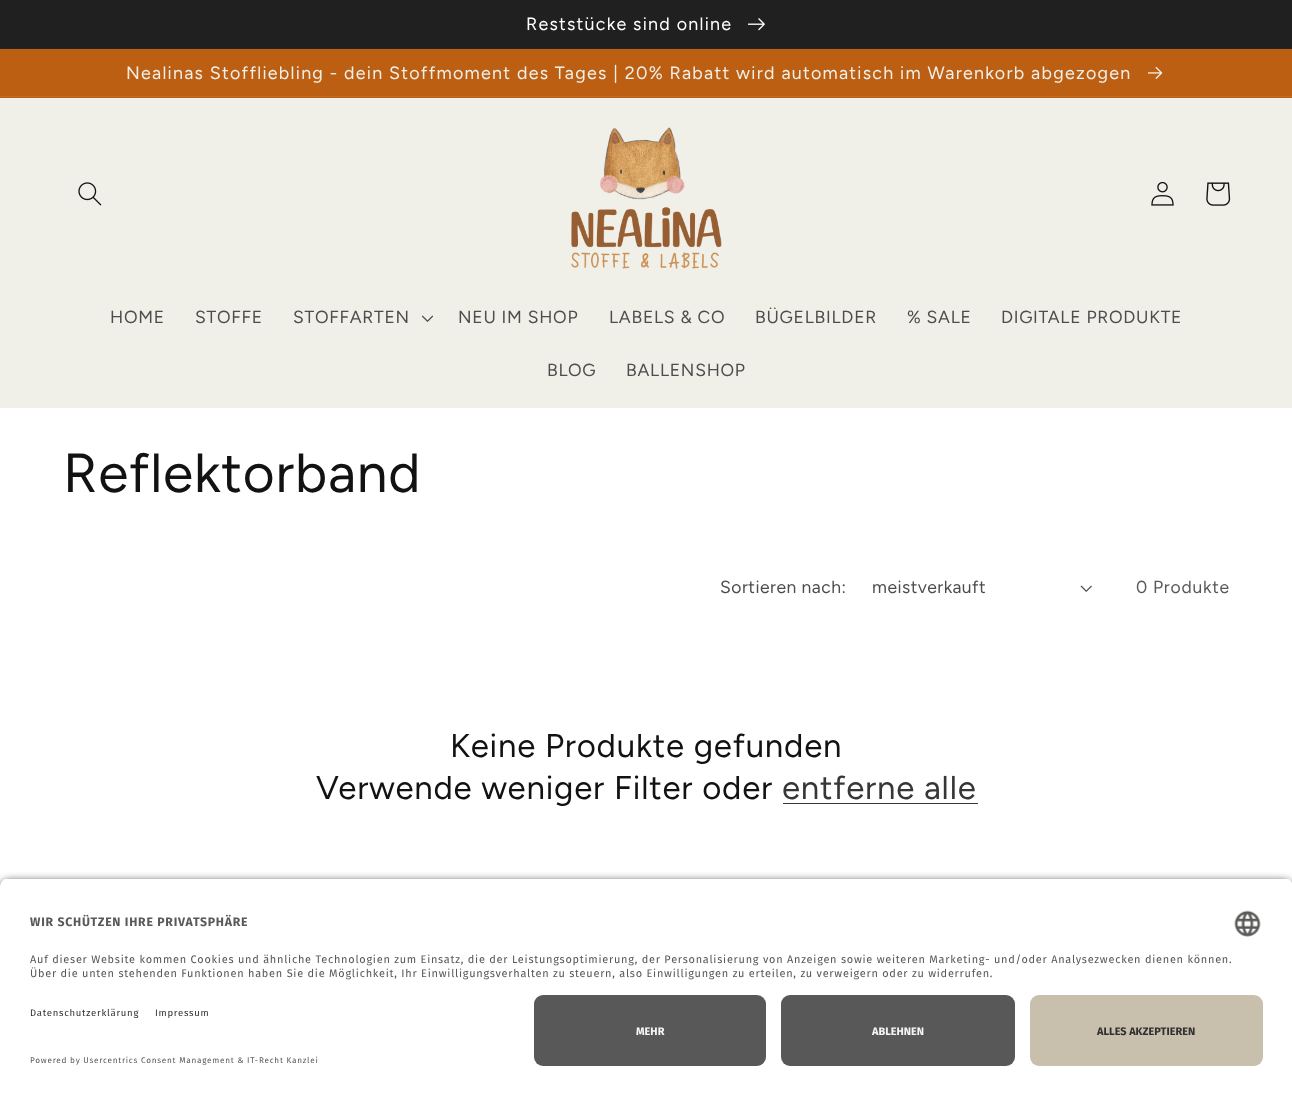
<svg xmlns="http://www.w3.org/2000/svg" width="1292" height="1096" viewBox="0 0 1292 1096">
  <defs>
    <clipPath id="clip1"><path d="M9 878H1284C1289 878 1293 882 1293 887V985H0V887C0 882 4 878 9 878Z"/></clipPath>
  </defs>
  <rect width="100%" height="100%" fill="#fff"/>
  <path d="M0 48h1292v1H0z" fill="#252525"/>
  <path d="M0 0h1292v48H0z" fill="#202020"/>
  <image x="748" y="18" width="17" height="13" href="img/1.png"/>
  <path d="M0 49h1292v49H0z" fill="#bc5f13"/>
  <path d="M0 96h1292v1H0z" fill="#c06b24"/>
  <image x="1148" y="66" width="15" height="13" href="img/2.png"/>
  <path d="M0 98h1292v310H0z" fill="#f0efe8"/>
  <image x="78" y="182" width="24" height="24" href="img/3.png"/>
  <image x="571" y="127" width="151" height="142" href="img/4.png"/>
  <image x="1151" y="181" width="23" height="25" href="img/5.png"/>
  <image x="1206" y="182" width="25" height="24" href="img/6.png"/>
  <image x="421" y="315" width="13" height="7" href="img/7.png"/>
  <image x="1080" y="585" width="12" height="7" href="img/8.png"/>
  <path d="M783 803h195v1H783z" fill="#363636"/>
  <rect y="881" width="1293" height="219" rx="9" fill="#000000cc" filter="blur(4.5px)"/>
  <g clip-path="url(#clip1)">
    <path d="M0 879h1292v106H0z" fill="#fff"/>
  </g>
  <image x="1234" y="910" width="27" height="27" href="img/9.png"/>
  <path d="M0 985h1292v111H0z" fill="#fff"/>
  <rect x="534" y="995" width="232" height="71" rx="9" fill="#585858"/>
  <rect x="781" y="995" width="234" height="71" rx="9" fill="#585858"/>
  <rect x="1030" y="995" width="233" height="71" rx="9" fill="#c9bfad"/>
  <text x="526" y="30" font-family="Figtree" font-size="17.88" letter-spacing="1.25" fill="#fff">Reststücke sind online</text>
  <text x="126" y="79" font-family="Figtree" font-size="17.88" letter-spacing="1.25" fill="#f0efe8">Nealinas Stoffliebling - dein Stoffmoment des Tages | 20% Rabatt wird automatisch im Warenkorb abgezogen</text>
  <g font-family="Figtree" font-size="17.5" letter-spacing="0.75" fill="#4d4d4d">
    <text x="110" y="323">HOME</text>
    <text x="195" y="323">STOFFE</text>
    <text x="293" y="323">STOFFARTEN</text>
    <text x="458" y="323">NEU IM SHOP</text>
    <text x="609" y="323">LABELS &amp; CO</text>
    <text x="755" y="323">BÜGELBILDER</text>
    <text x="907" y="323">% SALE</text>
    <text x="1001" y="323">DIGITALE PRODUKTE</text>
    <text x="547" y="376">BLOG</text>
    <text x="626" y="376">BALLENSHOP</text>
  </g>
  <text x="63" y="492" font-family="Figtree" font-size="55" letter-spacing="0.8" fill="#121212">Reflektorband</text>
  <g font-family="Figtree" font-size="17.5" letter-spacing="0.5" fill="#4d4d4d">
    <text x="720" y="593">Sortieren nach:</text>
    <text x="872" y="593">meistverkauft</text>
  </g>
  <text x="1136" y="593" font-family="Figtree" font-size="17.5" letter-spacing="0.75" fill="#595959">0 Produkte</text>
  <g font-family="Figtree" font-size="33" letter-spacing="0.8" fill="#121212">
    <text x="450" y="757">Keine Produkte gefunden</text>
    <text x="316" y="799">Verwende weniger Filter oder</text>
  </g>
  <text x="782" y="799" font-family="Figtree" font-size="33" letter-spacing="0.8" fill="#363636">entferne alle</text>
  <text x="30" y="926" font-family="Fira Sans" font-size="12.25" font-weight="bold" letter-spacing="0.75" fill="#595959">WIR SCHÜTZEN IHRE PRIVATSPHÄRE</text>
  <g font-family="Fira Sans" font-size="10.94" letter-spacing="0.75" fill="#595959">
    <text x="30" y="963">Auf dieser Website kommen Cookies und ähnliche Technologien zum Einsatz, die der Leistungsoptimierung, der Personalisierung von Anzeigen sowie weiteren Marketing- und/oder Analysezwecken dienen können.</text>
    <text x="30" y="977">Über die unten stehenden Funktionen haben Sie die Möglichkeit, Ihr Einwilligungsverhalten zu steuern, also Einwilligungen zu erteilen, zu verweigern oder zu widerrufen.</text>
  </g>
  <g font-family="Fira Sans" font-size="9.5" letter-spacing="0.75" fill="#303030">
    <text x="30" y="1016">Datenschutzerklärung</text>
    <text x="155" y="1016">Impressum</text>
  </g>
  <text x="30" y="1063" font-family="Fira Sans" font-size="8.2" letter-spacing="0.75" fill="#595959">Powered by Usercentrics Consent Management &amp; IT-Recht Kanzlei</text>
  <g font-family="Fira Sans" font-size="10.94" font-weight="bold" fill="#f5f5f5">
    <text x="636" y="1035">MEHR</text>
    <text x="872" y="1035">ABLEHNEN</text>
  </g>
  <text x="1097" y="1035" font-family="Fira Sans" font-size="10.94" font-weight="bold" fill="#303030">ALLES AKZEPTIEREN</text>
</svg>
